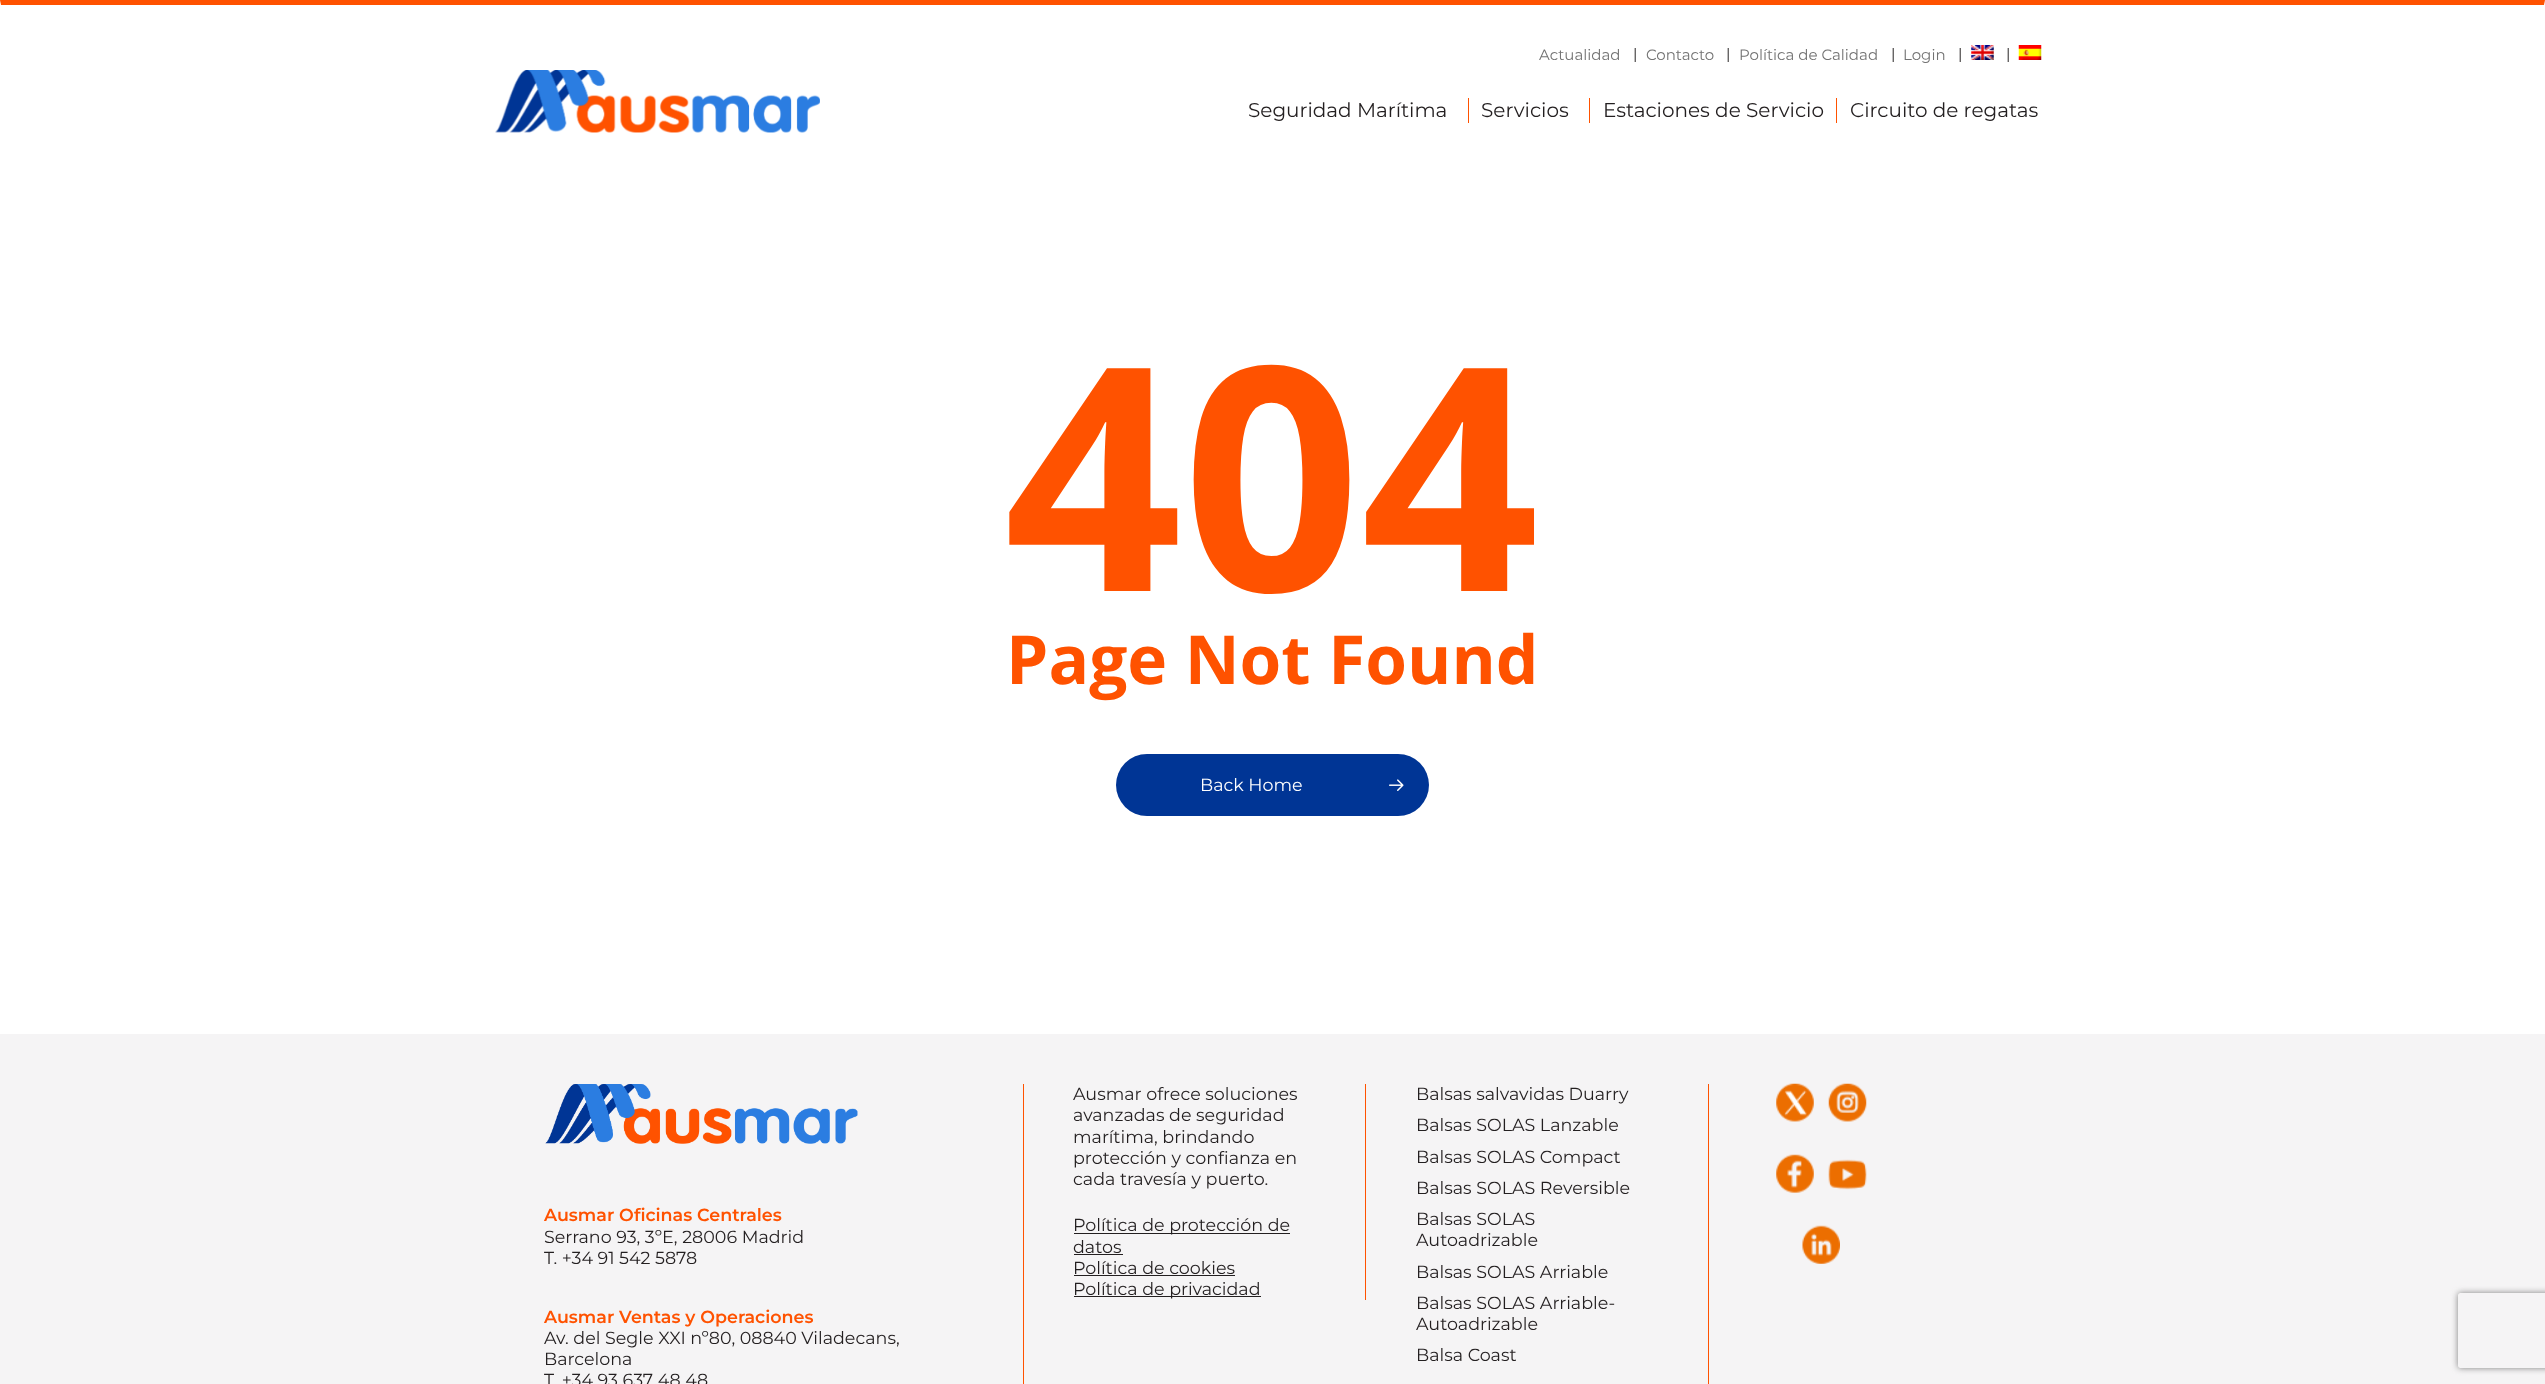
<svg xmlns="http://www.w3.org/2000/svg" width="2545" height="1384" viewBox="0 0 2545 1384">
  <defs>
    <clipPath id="clip1"><path d="M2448 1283H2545V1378H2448ZM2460.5 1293H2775.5C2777 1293 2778 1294 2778 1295.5V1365.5C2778 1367 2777 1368 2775.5 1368H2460.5C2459 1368 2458 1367 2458 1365.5V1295.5C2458 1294 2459 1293 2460.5 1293Z" clip-rule="evenodd"/></clipPath>
  </defs>
  <rect width="100%" height="100%" fill="#fff"/>
  <path d="M0 0H2545L2544 5H1Z" fill="#ff5200"/>
  <image x="1971" y="45" width="23" height="15" href="img/1.png"/>
  <image x="2018" y="45" width="24" height="15" href="img/2.png"/>
  <image x="495" y="70" width="325" height="63" href="img/3.png"/>
  <path d="M1468 98h1v25H1468z" fill="#ff5200"/>
  <path d="M1589 98h1v25H1589z" fill="#ff5200"/>
  <path d="M1836 98h1v25H1836z" fill="#ff5200"/>
  <rect x="1116" y="754" width="313" height="62" rx="31" fill="#003595"/>
  <image x="1389" y="779" width="15" height="12" href="img/4.png"/>
  <path d="M0 1034h2545v350H0z" fill="#f5f4f5"/>
  <path d="M1023 1084h1v300H1023z" fill="#ff5200"/>
  <image x="545" y="1084" width="313" height="60" href="img/5.png"/>
  <path d="M1365 1084h1v216H1365z" fill="#ff5200"/>
  <path d="M1074 1233h216v1H1074z" fill="#231f20"/>
  <path d="M1074 1254h49v1H1074z" fill="#231f20"/>
  <path d="M1074 1275h161v1H1074z" fill="#231f20"/>
  <path d="M1074 1296h187v1H1074z" fill="#231f20"/>
  <path d="M1708 1084h1v300H1708z" fill="#ff5200"/>
  <image x="1776" y="1083" width="38" height="39" href="img/6.png"/>
  <image x="1828" y="1083" width="39" height="39" href="img/7.png"/>
  <image x="1776" y="1154" width="38" height="39" href="img/8.png"/>
  <image x="1828" y="1159" width="39" height="31" href="img/9.png"/>
  <image x="1802" y="1225" width="38" height="39" href="img/10.png"/>
  <g clip-path="url(#clip1)">
    <rect x="2458" y="1293" width="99" height="75" rx="2.5" fill="#808080" filter="blur(3px)"/>
  </g>
  <text x="1539" y="60" font-family="Montserrat" font-size="15" fill="#737373">Actualidad</text>
  <text x="1633" y="59" font-family="Montserrat" font-size="15" fill="#231f20">|</text>
  <text x="1646" y="60" font-family="Montserrat" font-size="15" fill="#737373">Contacto</text>
  <text x="1726" y="59" font-family="Montserrat" font-size="15" fill="#231f20">|</text>
  <text x="1739" y="60" font-family="Montserrat" font-size="15" fill="#737373">Política de Calidad</text>
  <text x="1891" y="59" font-family="Montserrat" font-size="15" fill="#231f20">|</text>
  <text x="1903" y="60" font-family="Montserrat" font-size="15" fill="#737373">Login</text>
  <g font-family="Montserrat" font-size="15" fill="#231f20">
    <text x="1958" y="59">|</text>
    <text x="2006" y="59">|</text>
  </g>
  <g font-family="Montserrat" font-size="20" fill="#231f20">
    <text x="1248" y="117">Seguridad Marítima</text>
    <text x="1481" y="117">Servicios</text>
    <text x="1603" y="117">Estaciones de Servicio</text>
    <text x="1850" y="117">Circuito de regatas</text>
  </g>
  <text x="1004" y="591" font-family="Open Sans" font-size="312" font-weight="bold" fill="#ff5200">404</text>
  <text x="1006" y="684" font-family="Open Sans" font-size="67.5" font-weight="bold" fill="#ff5200">Page Not Found</text>
  <text x="1200" y="791" font-family="Montserrat" font-size="17.5" fill="#fff">Back Home</text>
  <text x="544" y="1221" font-family="Montserrat" font-size="17.5" font-weight="600" fill="#ff5200">Ausmar Oficinas Centrales</text>
  <g font-family="Montserrat" font-size="17.5" fill="#231f20">
    <text x="544" y="1243">Serrano 93, 3ºE, 28006 Madrid</text>
    <text x="544" y="1264">T. +34 91 542 5878</text>
  </g>
  <text x="544" y="1323" font-family="Montserrat" font-size="17.5" font-weight="600" fill="#ff5200">Ausmar Ventas y Operaciones</text>
  <g font-family="Montserrat" font-size="17.5" fill="#231f20">
    <text x="544" y="1344">Av. del Segle XXI nº80, 08840 Viladecans,</text>
    <text x="544" y="1365">Barcelona</text>
    <text x="544" y="1386">T. +34 93 637 48 48</text>
    <text x="1073" y="1100">Ausmar ofrece soluciones</text>
    <text x="1073" y="1121">avanzadas de seguridad</text>
    <text x="1073" y="1143">marítima, brindando</text>
    <text x="1073" y="1164">protección y confianza en</text>
    <text x="1073" y="1185">cada travesía y puerto.</text>
    <text x="1073" y="1231">Política de protección de</text>
    <text x="1073" y="1253">datos</text>
    <text x="1073" y="1274">Política de cookies</text>
    <text x="1073" y="1295">Política de privacidad</text>
    <text x="1416" y="1100">Balsas salvavidas Duarry</text>
    <text x="1416" y="1131">Balsas SOLAS Lanzable</text>
    <text x="1416" y="1163">Balsas SOLAS Compact</text>
    <text x="1416" y="1194">Balsas SOLAS Reversible</text>
    <text x="1416" y="1225">Balsas SOLAS</text>
    <text x="1416" y="1246">Autoadrizable</text>
    <text x="1416" y="1278">Balsas SOLAS Arriable</text>
    <text x="1416" y="1309">Balsas SOLAS Arriable-</text>
    <text x="1416" y="1330">Autoadrizable</text>
    <text x="1416" y="1361">Balsa Coast</text>
  </g>
</svg>
